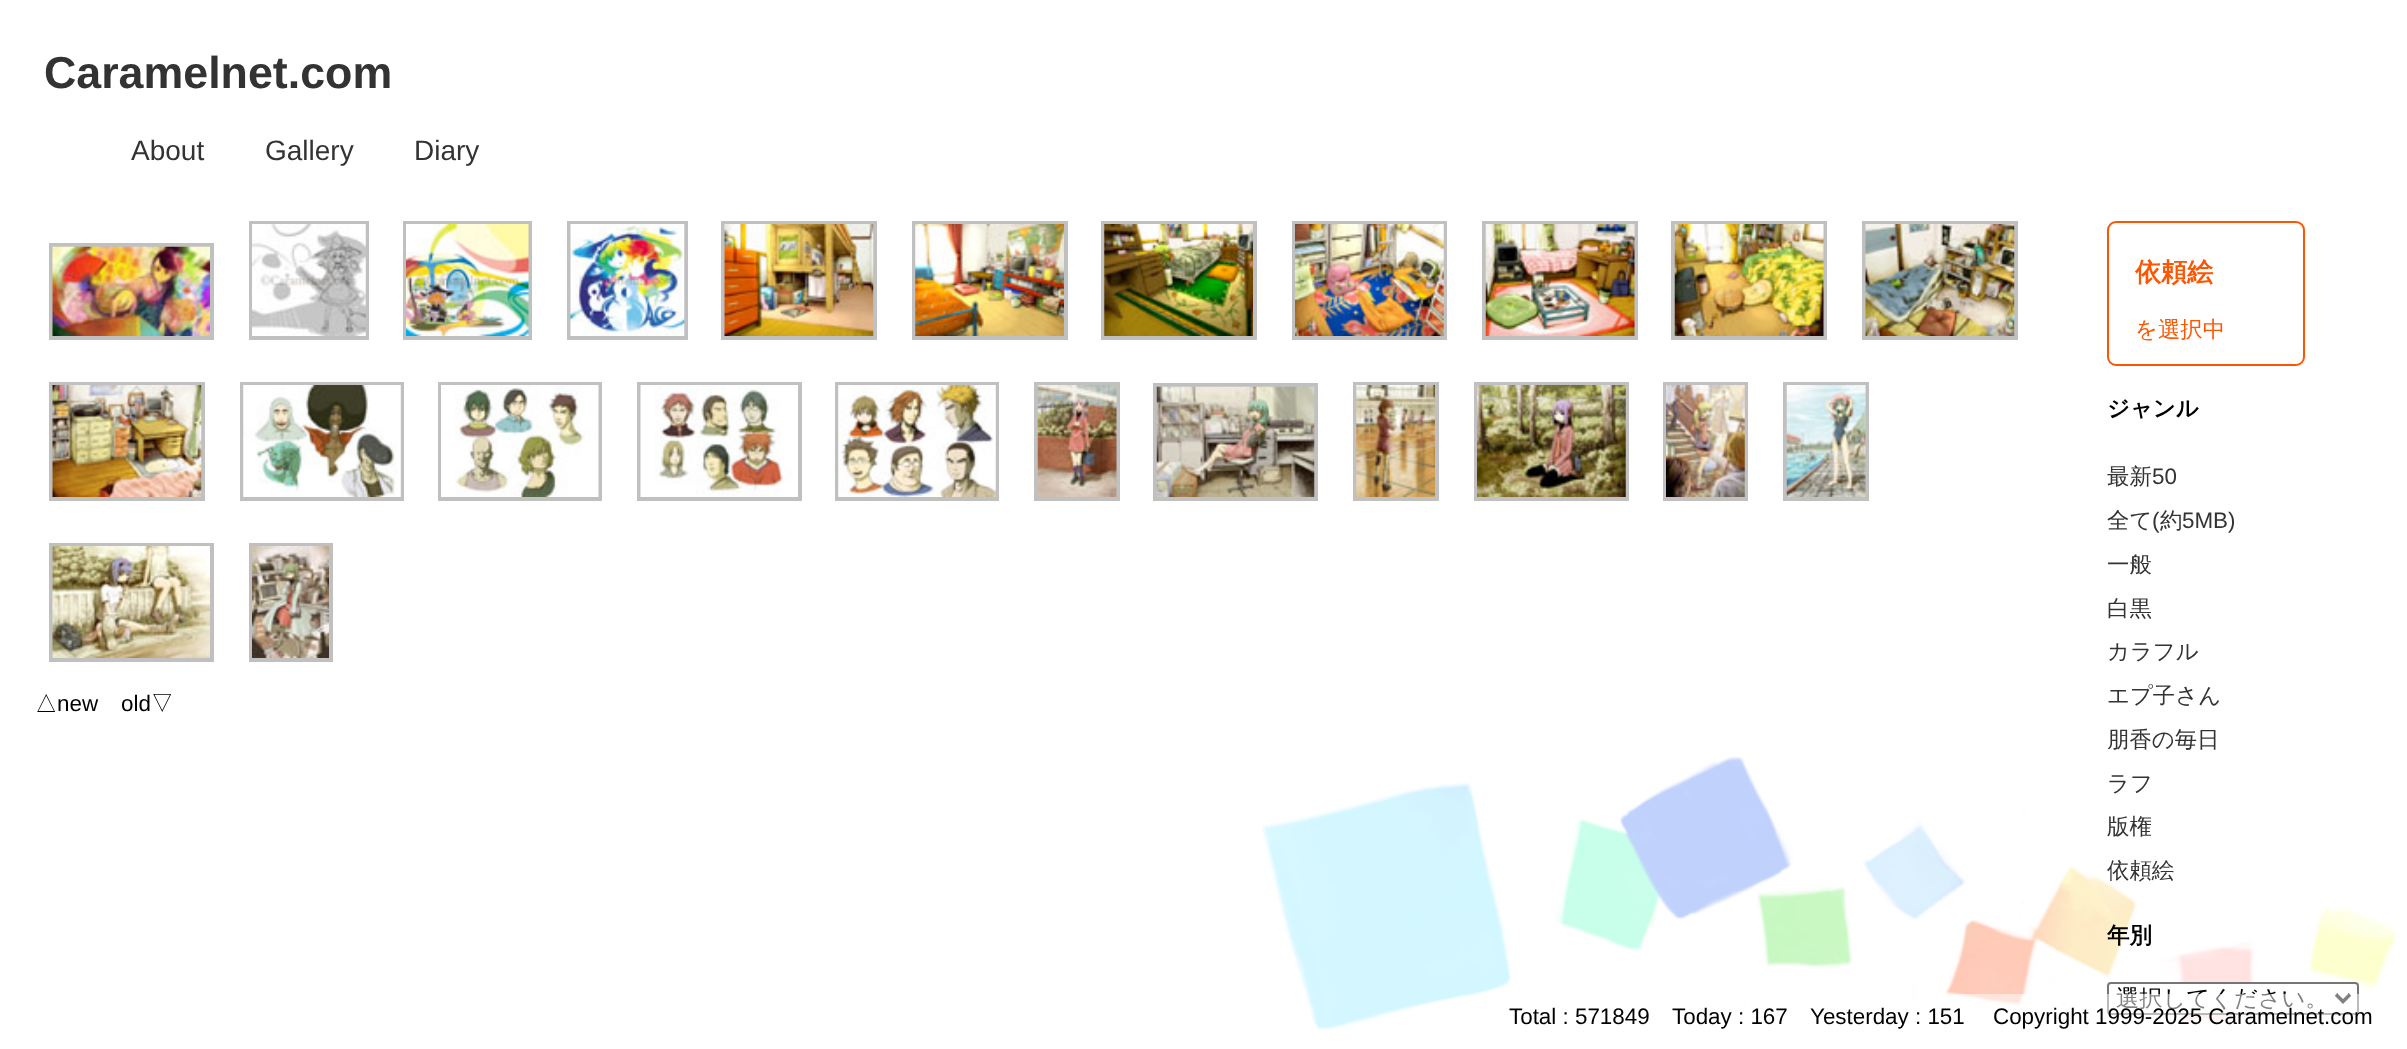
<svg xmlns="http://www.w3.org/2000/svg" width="2407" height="1049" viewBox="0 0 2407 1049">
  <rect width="100%" height="100%" fill="#fff"/>
  <image x="1262" y="756" width="1136" height="275" href="img/1.png"/>
  <path d="M251 223h116v115H251z" fill="none" stroke="#c0c0c0" stroke-width="4"/>
  <path d="M405 223h125v115H405z" fill="none" stroke="#c0c0c0" stroke-width="4"/>
  <path d="M569 223h117v115H569z" fill="none" stroke="#c0c0c0" stroke-width="4"/>
  <path d="M723 223h152v115H723z" fill="none" stroke="#c0c0c0" stroke-width="4"/>
  <path d="M914 223h152v115H914z" fill="none" stroke="#c0c0c0" stroke-width="4"/>
  <path d="M1103 223h152v115H1103z" fill="none" stroke="#c0c0c0" stroke-width="4"/>
  <path d="M1294 223h151v115H1294z" fill="none" stroke="#c0c0c0" stroke-width="4"/>
  <path d="M1484 223h152v115H1484z" fill="none" stroke="#c0c0c0" stroke-width="4"/>
  <path d="M1673 223h152v115H1673z" fill="none" stroke="#c0c0c0" stroke-width="4"/>
  <path d="M1864 223h152v115H1864z" fill="none" stroke="#c0c0c0" stroke-width="4"/>
  <path d="M51 245h161v93H51z" fill="none" stroke="#c0c0c0" stroke-width="4"/>
  <image x="252" y="224" width="114" height="112" href="img/2.png"/>
  <image x="406" y="224" width="123" height="112" href="img/3.png"/>
  <image x="570" y="224" width="115" height="112" href="img/4.png"/>
  <image x="724" y="224" width="150" height="112" href="img/5.png"/>
  <image x="915" y="224" width="149" height="112" href="img/6.png"/>
  <image x="1104" y="224" width="149" height="112" href="img/7.png"/>
  <image x="1295" y="224" width="149" height="112" href="img/8.png"/>
  <image x="1485" y="224" width="150" height="112" href="img/9.png"/>
  <image x="1674" y="224" width="150" height="112" href="img/10.png"/>
  <image x="1865" y="224" width="150" height="112" href="img/11.png"/>
  <image x="52" y="246" width="158" height="90" href="img/12.png"/>
  <path d="M51 384h152v115H51z" fill="none" stroke="#c0c0c0" stroke-width="4"/>
  <path d="M242 384h160v115H242z" fill="none" stroke="#c0c0c0" stroke-width="4"/>
  <path d="M440 384h160v115H440z" fill="none" stroke="#c0c0c0" stroke-width="4"/>
  <path d="M639 384h161v115H639z" fill="none" stroke="#c0c0c0" stroke-width="4"/>
  <path d="M837 384h160v115H837z" fill="none" stroke="#c0c0c0" stroke-width="4"/>
  <path d="M1036 384h82v115H1036z" fill="none" stroke="#c0c0c0" stroke-width="4"/>
  <path d="M1155 385h161v114H1155z" fill="none" stroke="#c0c0c0" stroke-width="4"/>
  <path d="M1355 384h82v115H1355z" fill="none" stroke="#c0c0c0" stroke-width="4"/>
  <path d="M1476 384h151v115H1476z" fill="none" stroke="#c0c0c0" stroke-width="4"/>
  <path d="M1665 384h81v115H1665z" fill="none" stroke="#c0c0c0" stroke-width="4"/>
  <path d="M1785 384h82v115H1785z" fill="none" stroke="#c0c0c0" stroke-width="4"/>
  <image x="52" y="385" width="150" height="112" href="img/13.png"/>
  <image x="243" y="385" width="158" height="112" href="img/14.png"/>
  <image x="441" y="385" width="158" height="112" href="img/15.png"/>
  <image x="640" y="385" width="158" height="112" href="img/16.png"/>
  <image x="838" y="385" width="158" height="112" href="img/17.png"/>
  <image x="1037" y="385" width="80" height="112" href="img/18.png"/>
  <image x="1156" y="386" width="159" height="111" href="img/19.png"/>
  <image x="1356" y="385" width="79" height="112" href="img/20.png"/>
  <image x="1477" y="385" width="149" height="112" href="img/21.png"/>
  <image x="1666" y="385" width="79" height="112" href="img/22.png"/>
  <image x="1786" y="385" width="80" height="112" href="img/23.png"/>
  <path d="M51 545h161v115H51z" fill="none" stroke="#c0c0c0" stroke-width="4"/>
  <path d="M251 545h80v115H251z" fill="none" stroke="#c0c0c0" stroke-width="4"/>
  <image x="52" y="546" width="158" height="112" href="img/24.png"/>
  <image x="252" y="546" width="77" height="112" href="img/25.png"/>
  <rect x="2108" y="222" width="196" height="143" rx="8" fill="none" stroke="#f50" stroke-width="2"/>
  <rect x="2108" y="983" width="250" height="31" rx="3" fill="#fff" stroke="#767676" stroke-width="2"/>
  <path d="M2336 994.5L2343 1001.5L2350 994.5" fill="none" stroke="#000" stroke-width="3.5"/>
  <text x="44" y="88" font-family="Liberation Sans" font-size="44.75" font-weight="bold" fill="#333">Caramelnet.com</text>
  <g font-family="Liberation Sans" font-size="28" fill="#333">
    <text x="131" y="160">About</text>
    <text x="265" y="160">Gallery</text>
    <text x="414" y="160">Diary</text>
  </g>
  <text x="2135" y="281" font-family="WenQuanYi Zen Hei" font-size="26" font-weight="bold" fill="#f50">依頼絵</text>
  <text x="2135" y="337" font-family="WenQuanYi Zen Hei" font-size="22.4" font-weight="500" fill="#f50">を選択中</text>
  <text x="2107" y="416" font-family="WenQuanYi Zen Hei" font-size="22.4" font-weight="bold" fill="#000">ジャンル</text>
  <text x="2107" y="484" font-family="WenQuanYi Zen Hei" font-size="22.4" font-weight="500" fill="#333">最新</text>
  <text x="2152" y="484" font-family="Liberation Sans" font-size="22.4" fill="#333">50</text>
  <text x="2107" y="528" font-family="WenQuanYi Zen Hei" font-size="22.4" font-weight="500" fill="#333">全て</text>
  <text x="2152" y="528" font-family="Liberation Sans" font-size="22.4" fill="#333">(</text>
  <text x="2160" y="528" font-family="WenQuanYi Zen Hei" font-size="22.4" font-weight="500" fill="#333">約</text>
  <text x="2182" y="528" font-family="Liberation Sans" font-size="22.4" fill="#333">5MB)</text>
  <g font-family="WenQuanYi Zen Hei" font-size="22.4" font-weight="500" fill="#333">
    <text x="2107" y="572">一般</text>
    <text x="2107" y="616">白黒</text>
    <text x="2107" y="659">カラフル</text>
    <text x="2107" y="703">エプ子さん</text>
    <text x="2107" y="747">朋香の毎日</text>
    <text x="2107" y="791">ラフ</text>
    <text x="2107" y="834">版権</text>
    <text x="2107" y="878">依頼絵</text>
  </g>
  <text x="2107" y="943" font-family="WenQuanYi Zen Hei" font-size="22.4" font-weight="bold" fill="#000">年別</text>
  <text x="2116" y="1006" font-family="WenQuanYi Zen Hei" font-size="23.25" font-weight="500" fill="#000">選択してください。</text>
  <text x="35" y="711" font-family="WenQuanYi Zen Hei" font-size="22.4" font-weight="500" fill="#000">△</text>
  <g font-family="Liberation Sans" font-size="22.4" fill="#000">
    <text x="57" y="711">new</text>
    <text x="121" y="711">old</text>
  </g>
  <text x="151" y="711" font-family="WenQuanYi Zen Hei" font-size="22.4" font-weight="500" fill="#000">▽</text>
  <path d="M1946 994h413v29H1946z" fill="#ffffff80"/>
  <g font-family="Liberation Sans" font-size="22.4" fill="#000">
    <text x="1509" y="1024">Total : 571849</text>
    <text x="1672" y="1024">Today : 167</text>
    <text x="1810" y="1024">Yesterday : 151</text>
    <text x="1993" y="1024">Copyright 1999-2025 Caramelnet.com</text>
  </g>
</svg>
